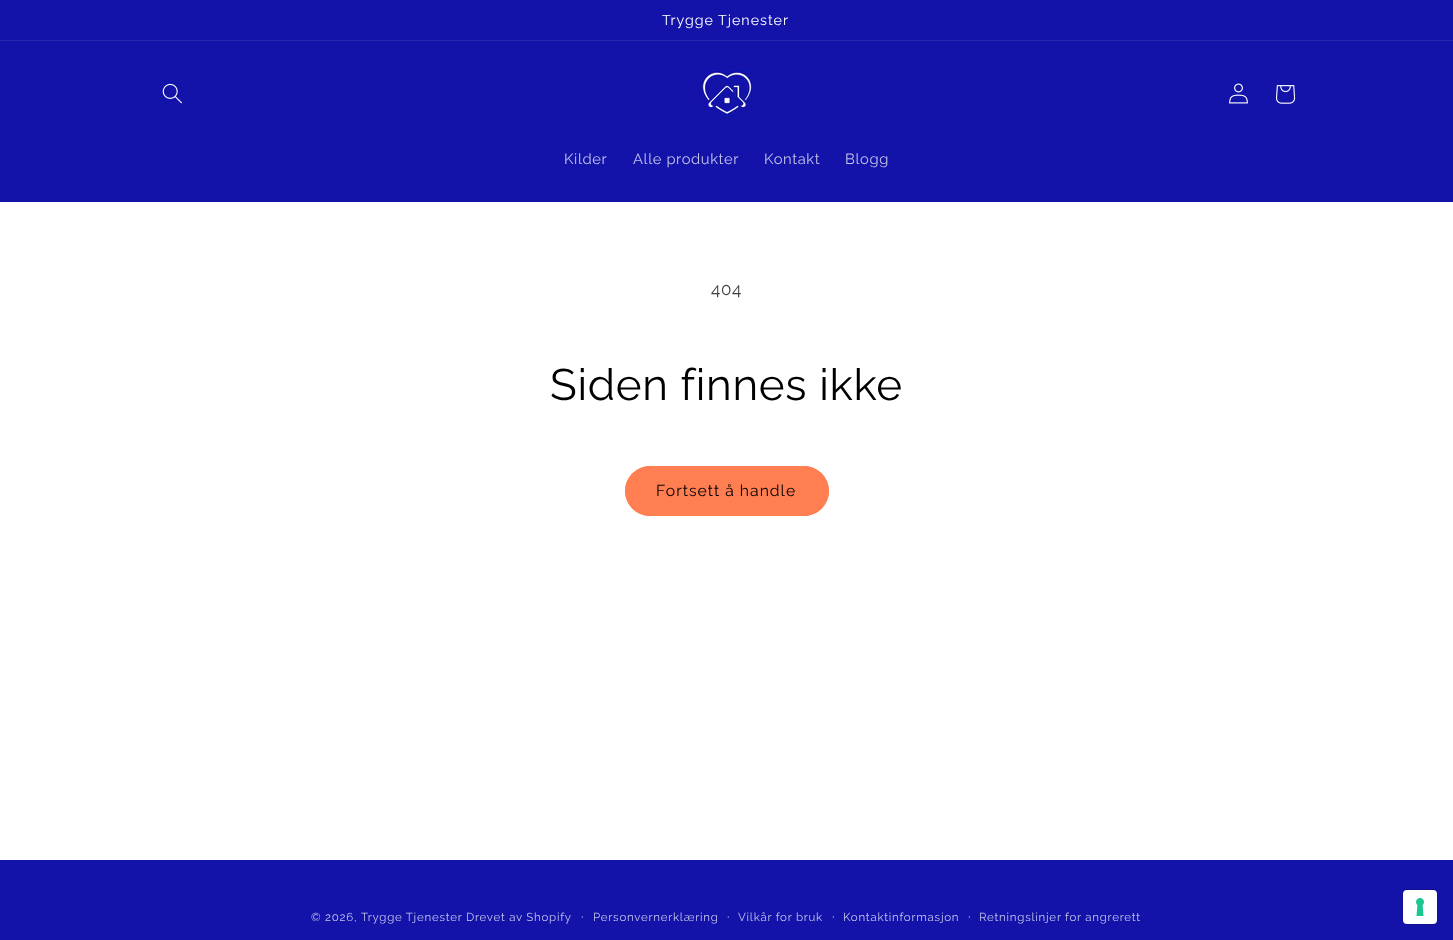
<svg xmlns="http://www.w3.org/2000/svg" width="1453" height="940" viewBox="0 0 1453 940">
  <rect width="100%" height="100%" fill="#fff"/>
  <path d="M0 0h1453v40H0z" fill="#1313aa"/>
  <path d="M0 40h1453v1H0z" fill="#2626b1"/>
  <path d="M0 41h1453v161H0z" fill="#1313aa"/>
  <image x="162" y="83" width="20" height="21" href="img/1.png"/>
  <image x="702" y="69" width="50" height="48" href="img/2.png"/>
  <image x="1229" y="83" width="19" height="21" href="img/3.png"/>
  <image x="1276" y="85" width="20" height="19" href="img/4.png"/>
  <rect x="625" y="466" width="204" height="50" rx="25" fill="#ff7f52"/>
  <rect x="625.5" y="466.5" width="203" height="49" rx="24.5" fill="none" stroke="#ff7f52"/>
  <path d="M0 860h1453v80H0z" fill="#1313aa"/>
  <rect x="1402.5" y="889.5" width="35" height="35" rx="4.5" fill="none" stroke="#101091"/>
  <rect x="1403" y="890" width="34" height="34" rx="4" fill="#fff"/>
  <image x="1416" y="898" width="8" height="18" href="img/5.png"/>
  <text x="662" y="25" font-family="Raleway" font-size="14.25" letter-spacing="1" fill="#fff">Trygge Tjenester</text>
  <g font-family="Raleway" font-size="14.75" letter-spacing="0.6" fill="#c4c4ea">
    <text x="564" y="164">Kilder</text>
    <text x="633" y="164">Alle produkter</text>
    <text x="764" y="164">Kontakt</text>
    <text x="845" y="164">Blogg</text>
  </g>
  <text x="711" y="295" font-family="Raleway" font-size="17" letter-spacing="0.6" fill="#404040">404</text>
  <text x="550" y="400" font-family="Raleway" font-size="44" letter-spacing="0.7" fill="#000">Siden finnes ikke</text>
  <text x="656" y="496" font-family="Raleway" font-size="15.75" letter-spacing="1" fill="#000">Fortsett å handle</text>
  <g font-family="Raleway" font-size="11.5" letter-spacing="0.75" fill="#c4c4ea">
    <text x="311" y="921">© 2026,</text>
    <text x="361" y="921">Trygge Tjenester Drevet av Shopify</text>
  </g>
  <text x="581" y="921" font-family="Raleway" font-size="13" letter-spacing="0.75" fill="#c4c4ea">·</text>
  <text x="593" y="921" font-family="Raleway" font-size="11.5" letter-spacing="0.75" fill="#c4c4ea">Personvernerklæring</text>
  <text x="727" y="921" font-family="Raleway" font-size="13" letter-spacing="0.75" fill="#c4c4ea">·</text>
  <text x="738" y="921" font-family="Raleway" font-size="11.5" letter-spacing="0.75" fill="#c4c4ea">Vilkår for bruk</text>
  <text x="832" y="921" font-family="Raleway" font-size="13" letter-spacing="0.75" fill="#c4c4ea">·</text>
  <text x="843" y="921" font-family="Raleway" font-size="11.5" letter-spacing="0.75" fill="#c4c4ea">Kontaktinformasjon</text>
  <text x="968" y="921" font-family="Raleway" font-size="13" letter-spacing="0.75" fill="#c4c4ea">·</text>
  <text x="979" y="921" font-family="Raleway" font-size="11.5" letter-spacing="0.75" fill="#c4c4ea">Retningslinjer for angrerett</text>
</svg>
